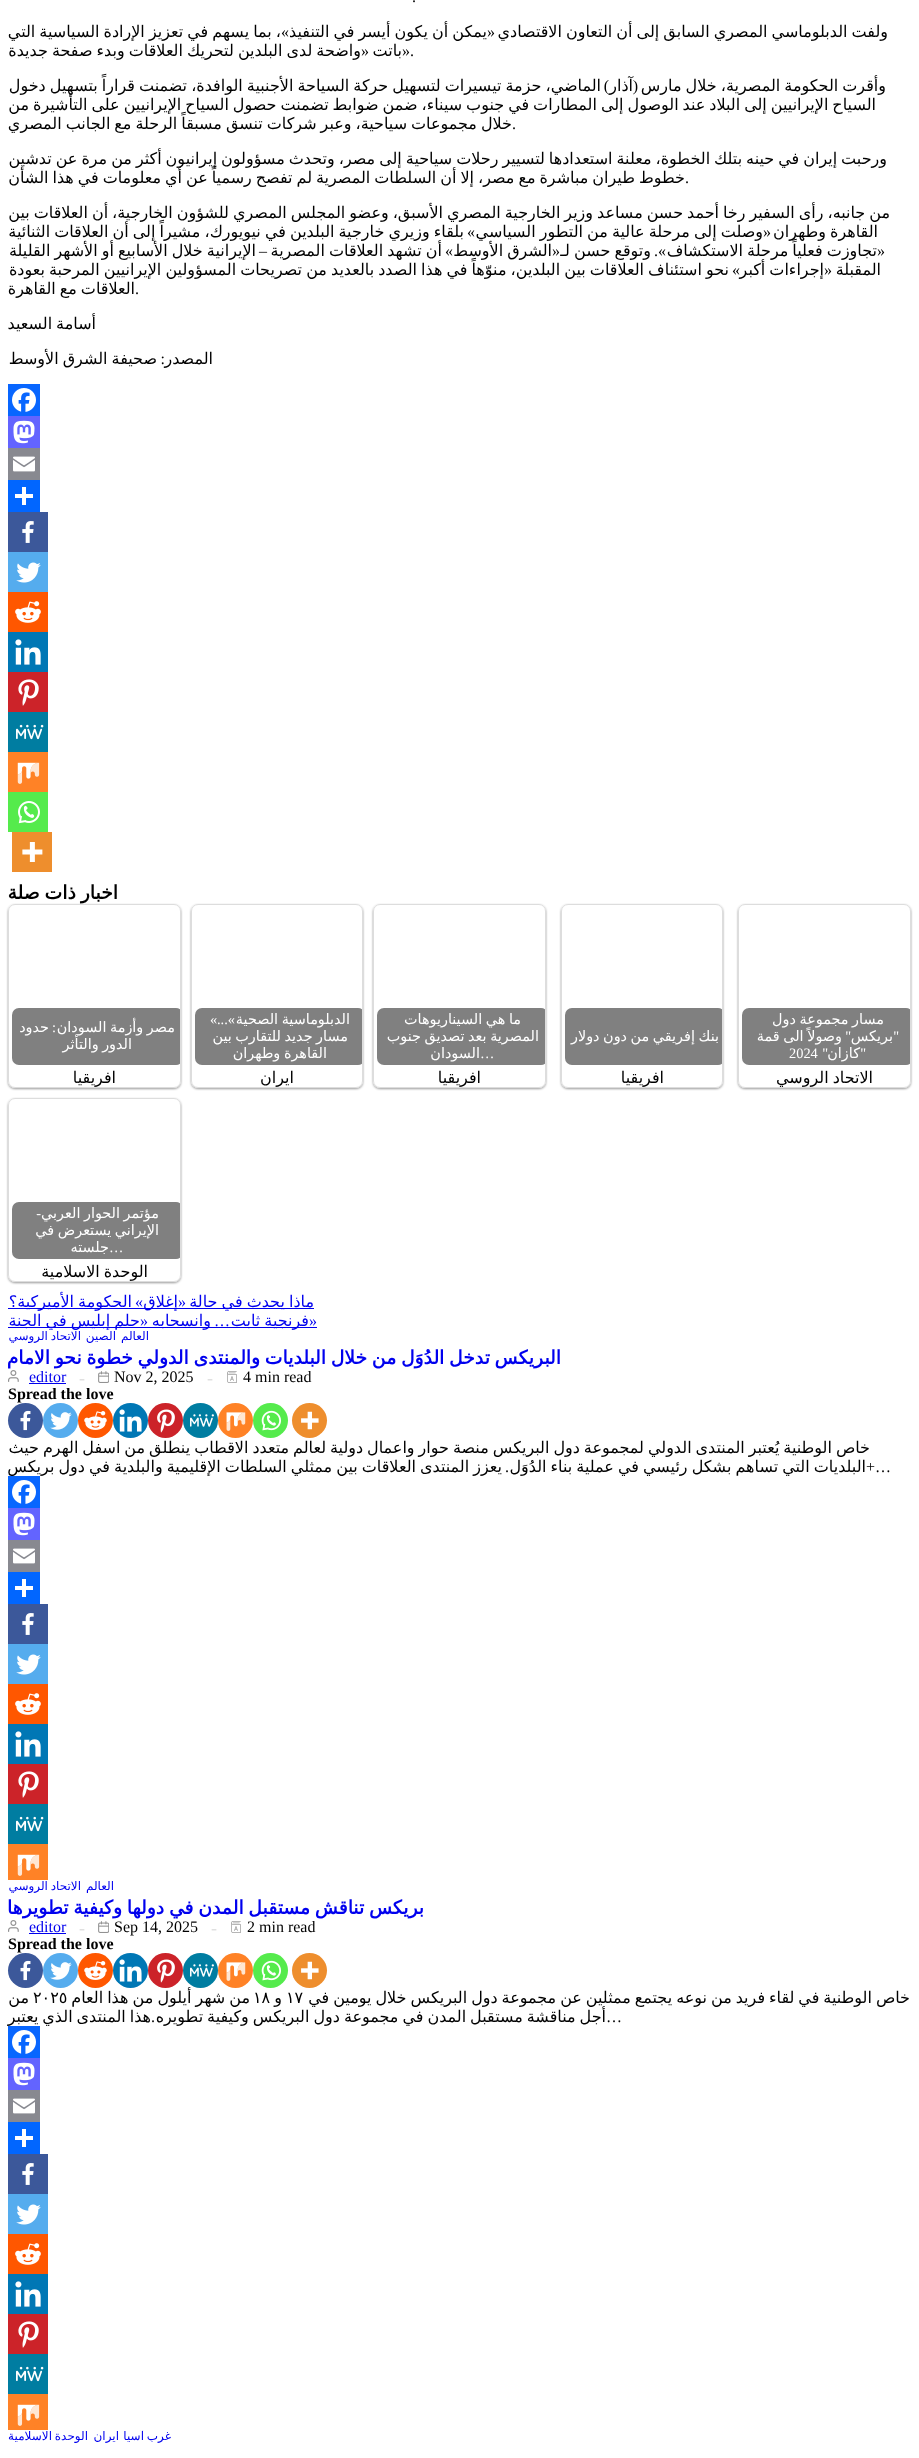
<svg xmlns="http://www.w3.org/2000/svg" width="919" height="2458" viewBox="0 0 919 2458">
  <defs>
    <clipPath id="clip1"><path d="M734 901H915V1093H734ZM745 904H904C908 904 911 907 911 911V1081C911 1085 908 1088 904 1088H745C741 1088 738 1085 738 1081V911C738 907 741 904 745 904Z" clip-rule="evenodd"/></clipPath>
    <clipPath id="clip2"><path d="M739 905h171v163H739z"/></clipPath>
    <clipPath id="clip3"><path d="M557 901H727V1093H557ZM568 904H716C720 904 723 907 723 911V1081C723 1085 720 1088 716 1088H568C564 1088 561 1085 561 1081V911C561 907 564 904 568 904Z" clip-rule="evenodd"/></clipPath>
    <clipPath id="clip4"><path d="M562 905h160v163H562z"/></clipPath>
    <clipPath id="clip5"><path d="M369 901H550V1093H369ZM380 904H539C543 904 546 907 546 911V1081C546 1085 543 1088 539 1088H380C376 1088 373 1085 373 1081V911C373 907 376 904 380 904Z" clip-rule="evenodd"/></clipPath>
    <clipPath id="clip6"><path d="M374 905h171v163H374z"/></clipPath>
    <clipPath id="clip7"><path d="M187 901H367V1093H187ZM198 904H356C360 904 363 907 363 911V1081C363 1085 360 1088 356 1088H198C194 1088 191 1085 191 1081V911C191 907 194 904 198 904Z" clip-rule="evenodd"/></clipPath>
    <clipPath id="clip8"><path d="M192 905h170v163H192z"/></clipPath>
    <clipPath id="clip9"><path d="M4 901H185V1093H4ZM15 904H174C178 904 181 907 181 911V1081C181 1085 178 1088 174 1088H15C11 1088 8 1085 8 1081V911C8 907 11 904 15 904Z" clip-rule="evenodd"/></clipPath>
    <clipPath id="clip10"><path d="M9 905h171v163H9z"/></clipPath>
    <clipPath id="clip11"><path d="M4 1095H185V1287H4ZM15 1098H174C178 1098 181 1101 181 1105V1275C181 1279 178 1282 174 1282H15C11 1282 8 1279 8 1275V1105C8 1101 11 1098 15 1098Z" clip-rule="evenodd"/></clipPath>
    <clipPath id="clip12"><path d="M9 1099h171v163H9z"/></clipPath>
    <clipPath id="clip13"><path d="M8 2430h903v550H8z"/></clipPath>
  </defs>
  <rect width="100%" height="100%" fill="#fff"/>
  <path d="M8 384h32v32H8z" fill="#0866ff"/>
  <image x="12" y="388" width="24" height="24" href="img/1.png"/>
  <path d="M8 416h32v32H8z" fill="#6364ff"/>
  <image x="13" y="420" width="22" height="24" href="img/2.png"/>
  <path d="M8 448h32v32H8z" fill="#888990"/>
  <image x="13" y="456" width="22" height="16" href="img/3.png"/>
  <path d="M8 480h32v32H8z" fill="#0166ff"/>
  <path d="M22 487h4v18H22z" fill="#fff"/>
  <path d="M15 494h18v4H15z" fill="#fff"/>
  <path d="M8 512h40v40H8z" fill="#3c589a"/>
  <image x="22" y="521" width="12" height="22" href="img/4.png"/>
  <path d="M8 552h40v40H8z" fill="#55acee"/>
  <image x="16" y="562" width="25" height="21" href="img/5.png"/>
  <path d="M8 592h40v40H8z" fill="#ff5700"/>
  <image x="15" y="601" width="26" height="22" href="img/6.png"/>
  <path d="M8 632h40v40H8z" fill="#0077b5"/>
  <image x="15" y="639" width="26" height="26" href="img/7.png"/>
  <path d="M8 672h40v40H8z" fill="#cc2329"/>
  <image x="18" y="679" width="21" height="27" href="img/8.png"/>
  <path d="M8 712h40v40H8z" fill="#007da1"/>
  <image x="16" y="724" width="28" height="16" href="img/9.png"/>
  <path d="M8 752h40v40H8z" fill="#ff8226"/>
  <image x="17" y="762" width="23" height="22" href="img/10.png"/>
  <path d="M8 792h40v40H8z" fill="#55eb4c"/>
  <image x="18" y="801" width="22" height="23" href="img/11.png"/>
  <path d="M12 832h40v40H12z" fill="#ee8e2d"/>
  <image x="22" y="842" width="21" height="20" href="img/12.png"/>
  <g clip-path="url(#clip1)">
    <rect x="738" y="905" width="173" height="184" rx="7" fill="#00000066" filter="blur(1px)"/>
  </g>
  <rect x="738.5" y="904.5" width="172" height="183" rx="6.5" fill="none" stroke="#ddd"/>
  <g clip-path="url(#clip2)">
    <rect x="742" y="1008" width="171" height="57" rx="7" fill="#808080"/>
  </g>
  <g clip-path="url(#clip3)">
    <rect x="561" y="905" width="162" height="184" rx="7" fill="#00000066" filter="blur(1px)"/>
  </g>
  <rect x="561.5" y="904.5" width="161" height="183" rx="6.5" fill="none" stroke="#ddd"/>
  <g clip-path="url(#clip4)">
    <rect x="565" y="1008" width="160" height="57" rx="7" fill="#808080"/>
  </g>
  <g clip-path="url(#clip5)">
    <rect x="373" y="905" width="173" height="184" rx="7" fill="#00000066" filter="blur(1px)"/>
  </g>
  <rect x="373.5" y="904.5" width="172" height="183" rx="6.5" fill="none" stroke="#ddd"/>
  <g clip-path="url(#clip6)">
    <rect x="377" y="1008" width="171" height="57" rx="7" fill="#808080"/>
  </g>
  <g clip-path="url(#clip7)">
    <rect x="191" y="905" width="172" height="184" rx="7" fill="#00000066" filter="blur(1px)"/>
  </g>
  <rect x="191.5" y="904.5" width="171" height="183" rx="6.5" fill="none" stroke="#ddd"/>
  <g clip-path="url(#clip8)">
    <rect x="195" y="1008" width="170" height="57" rx="7" fill="#808080"/>
  </g>
  <g clip-path="url(#clip9)">
    <rect x="8" y="905" width="173" height="184" rx="7" fill="#00000066" filter="blur(1px)"/>
  </g>
  <rect x="8.5" y="904.5" width="172" height="183" rx="6.5" fill="none" stroke="#ddd"/>
  <g clip-path="url(#clip10)">
    <rect x="12" y="1008" width="171" height="57" rx="7" fill="#808080"/>
  </g>
  <g clip-path="url(#clip11)">
    <rect x="8" y="1099" width="173" height="184" rx="7" fill="#00000066" filter="blur(1px)"/>
  </g>
  <rect x="8.5" y="1098.5" width="172" height="183" rx="6.5" fill="none" stroke="#ddd"/>
  <g clip-path="url(#clip12)">
    <rect x="12" y="1202" width="171" height="57" rx="7" fill="#808080"/>
  </g>
  <path d="M8 1308h306v1H8z" fill="#00e"/>
  <path d="M8 1327h309v1H8z" fill="#00e"/>
  <image x="227" y="1371" width="10" height="12" href="img/13.png"/>
  <image x="98" y="1371" width="11" height="12" href="img/14.png"/>
  <path d="M29 1383h37v1H29z" fill="#00e"/>
  <image x="8" y="1370" width="11" height="12" href="img/15.png"/>
  <circle cx="309.5" cy="1420.5" r="17.5" fill="#ee8e2d"/>
  <image x="301" y="1411" width="18" height="19" href="img/16.png"/>
  <circle cx="270.5" cy="1420.5" r="17.5" fill="#55eb4c"/>
  <image x="261" y="1410" width="20" height="21" href="img/17.png"/>
  <circle cx="235.5" cy="1420.5" r="17.5" fill="#ff8226"/>
  <image x="226" y="1412" width="20" height="19" href="img/18.png"/>
  <circle cx="200.5" cy="1420.5" r="17.5" fill="#007da1"/>
  <image x="190" y="1414" width="24" height="13" href="img/19.png"/>
  <circle cx="165.5" cy="1420.5" r="17.5" fill="#cc2329"/>
  <image x="157" y="1409" width="18" height="24" href="img/20.png"/>
  <circle cx="130.5" cy="1420.5" r="17.5" fill="#0077b5"/>
  <image x="119" y="1409" width="23" height="23" href="img/21.png"/>
  <circle cx="95.5" cy="1420.5" r="17.5" fill="#ff5700"/>
  <image x="84" y="1411" width="23" height="19" href="img/22.png"/>
  <circle cx="60.5" cy="1420.5" r="17.5" fill="#55acee"/>
  <image x="50" y="1412" width="22" height="18" href="img/23.png"/>
  <circle cx="25.5" cy="1420.5" r="17.5" fill="#3c589a"/>
  <image x="20" y="1410" width="11" height="21" href="img/24.png"/>
  <path d="M8 1476h32v32H8z" fill="#0866ff"/>
  <image x="12" y="1480" width="24" height="24" href="img/1.png"/>
  <path d="M8 1508h32v32H8z" fill="#6364ff"/>
  <image x="13" y="1512" width="22" height="24" href="img/2.png"/>
  <path d="M8 1540h32v32H8z" fill="#888990"/>
  <image x="13" y="1548" width="22" height="16" href="img/3.png"/>
  <path d="M8 1572h32v32H8z" fill="#0166ff"/>
  <path d="M22 1579h4v18H22z" fill="#fff"/>
  <path d="M15 1586h18v4H15z" fill="#fff"/>
  <path d="M8 1604h40v40H8z" fill="#3c589a"/>
  <image x="22" y="1613" width="12" height="22" href="img/4.png"/>
  <path d="M8 1644h40v40H8z" fill="#55acee"/>
  <image x="16" y="1654" width="25" height="21" href="img/5.png"/>
  <path d="M8 1684h40v40H8z" fill="#ff5700"/>
  <image x="15" y="1693" width="26" height="22" href="img/6.png"/>
  <path d="M8 1724h40v40H8z" fill="#0077b5"/>
  <image x="15" y="1731" width="26" height="26" href="img/7.png"/>
  <path d="M8 1764h40v40H8z" fill="#cc2329"/>
  <image x="18" y="1771" width="21" height="27" href="img/8.png"/>
  <path d="M8 1804h40v40H8z" fill="#007da1"/>
  <image x="16" y="1816" width="28" height="16" href="img/9.png"/>
  <path d="M8 1844h40v36H8z" fill="#ff8226"/>
  <image x="17" y="1854" width="23" height="22" href="img/10.png"/>
  <image x="231" y="1921" width="10" height="12" href="img/13.png"/>
  <image x="98" y="1921" width="11" height="12" href="img/14.png"/>
  <path d="M29 1933h37v1H29z" fill="#00e"/>
  <image x="8" y="1920" width="11" height="12" href="img/15.png"/>
  <circle cx="309.5" cy="1970.5" r="17.5" fill="#ee8e2d"/>
  <image x="301" y="1961" width="18" height="19" href="img/16.png"/>
  <circle cx="270.5" cy="1970.5" r="17.5" fill="#55eb4c"/>
  <image x="261" y="1960" width="20" height="21" href="img/17.png"/>
  <circle cx="25.5" cy="1970.5" r="17.5" fill="#3c589a"/>
  <image x="20" y="1960" width="11" height="21" href="img/24.png"/>
  <path d="M8 2026h32v32H8z" fill="#0866ff"/>
  <image x="12" y="2030" width="24" height="24" href="img/1.png"/>
  <path d="M8 2058h32v32H8z" fill="#6364ff"/>
  <image x="13" y="2062" width="22" height="24" href="img/2.png"/>
  <path d="M8 2090h32v32H8z" fill="#888990"/>
  <image x="13" y="2098" width="22" height="16" href="img/3.png"/>
  <path d="M8 2122h32v32H8z" fill="#0166ff"/>
  <path d="M22 2129h4v18H22z" fill="#fff"/>
  <path d="M15 2136h18v4H15z" fill="#fff"/>
  <path d="M8 2154h40v40H8z" fill="#3c589a"/>
  <image x="22" y="2163" width="12" height="22" href="img/4.png"/>
  <path d="M8 2194h40v40H8z" fill="#55acee"/>
  <image x="16" y="2204" width="25" height="21" href="img/5.png"/>
  <path d="M8 2234h40v40H8z" fill="#ff5700"/>
  <image x="15" y="2243" width="26" height="22" href="img/6.png"/>
  <path d="M8 2274h40v40H8z" fill="#0077b5"/>
  <image x="15" y="2281" width="26" height="26" href="img/7.png"/>
  <path d="M8 2314h40v40H8z" fill="#cc2329"/>
  <image x="18" y="2321" width="21" height="27" href="img/8.png"/>
  <path d="M8 2354h40v40H8z" fill="#007da1"/>
  <image x="16" y="2366" width="28" height="16" href="img/9.png"/>
  <path d="M8 2394h40v36H8z" fill="#ff8226"/>
  <image x="17" y="2404" width="23" height="22" href="img/10.png"/>
  <text x="412" y="2" font-family="Liberation Serif" font-size="16" fill="#000">.</text>
  <text x="888" y="37" word-spacing="-1" font-family="DejaVu Sans" font-size="16" direction="rtl" fill="#000">ولفت الدبلوماسي المصري السابق إلى أن التعاون الاقتصادي</text>
  <text x="495" y="37" font-family="Liberation Serif" font-size="16" direction="rtl" fill="#000">«</text>
  <text x="487" y="37" word-spacing="-1" font-family="DejaVu Sans" font-size="16" direction="rtl" fill="#000">يمكن أن يكون أيسر في التنفيذ</text>
  <text x="289" y="37" font-family="Liberation Serif" font-size="16" direction="rtl" fill="#000">»</text>
  <text x="281" y="37" word-spacing="-1" font-family="DejaVu Sans" font-size="16" direction="rtl" fill="#000">، بما يسهم في تعزيز الإرادة السياسية التي</text>
  <text x="402" y="56" font-family="Liberation Serif" font-size="16" fill="#000">».</text>
  <text x="402" y="56" font-family="DejaVu Sans" font-size="16" direction="rtl" fill="#000">باتت</text>
  <text x="369" y="56" font-family="Liberation Serif" font-size="16" direction="rtl" fill="#000">«</text>
  <g font-family="DejaVu Sans" font-size="16" direction="rtl" fill="#000">
    <text x="361" y="56" word-spacing="-1">واضحة لدى البلدين لتحريك العلاقات وبدء صفحة جديدة</text>
    <text x="886" y="91" word-spacing="-1">وأقرت الحكومة المصرية، خلال مارس</text>
  </g>
  <text x="609" y="91" font-family="Liberation Serif" font-size="16" direction="rtl" fill="#000">)</text>
  <text x="633" y="91" font-family="DejaVu Sans" font-size="16" direction="rtl" fill="#000">آذار</text>
  <text x="638" y="91" font-family="Liberation Serif" font-size="16" direction="rtl" fill="#000">(</text>
  <g font-family="DejaVu Sans" font-size="16" direction="rtl" fill="#000">
    <text x="601" y="91" word-spacing="-1">الماضي، حزمة تيسيرات لتسهيل حركة السياحة الأجنبية الوافدة، تضمنت قراراً بتسهيل دخول</text>
    <text x="876" y="110" word-spacing="-1.1">السياح الإيرانيين إلى البلاد عند الوصول إلى المطارات في جنوب سيناء، ضمن ضوابط تضمنت حصول السياح الإيرانيين على التأشيرة من</text>
  </g>
  <text x="512" y="129" font-family="Liberation Serif" font-size="16" fill="#000">.</text>
  <g font-family="DejaVu Sans" font-size="16" direction="rtl" fill="#000">
    <text x="512" y="129" word-spacing="-1.1">خلال مجموعات سياحية، وعبر شركات تنسق مسبقاً الرحلة مع الجانب المصري</text>
    <text x="887" y="164" word-spacing="-1.1">ورحبت إيران في حينه بتلك الخطوة، معلنة استعدادها لتسيير رحلات سياحية إلى مصر، وتحدث مسؤولون إيرانيون أكثر من مرة عن تدشين</text>
  </g>
  <text x="685" y="183" font-family="Liberation Serif" font-size="16" fill="#000">.</text>
  <g font-family="DejaVu Sans" font-size="16" direction="rtl" fill="#000">
    <text x="685" y="183" word-spacing="-1.1">خطوط طيران مباشرة مع مصر، إلا أن السلطات المصرية لم تفصح رسمياً عن أي معلومات في هذا الشأن</text>
    <text x="890" y="218" word-spacing="-1.1">من جانبه، رأى السفير رخا أحمد حسن مساعد وزير الخارجية المصري الأسبق، وعضو المجلس المصري للشؤون الخارجية، أن العلاقات بين</text>
    <text x="878" y="237" word-spacing="-1">القاهرة وطهران</text>
  </g>
  <text x="771" y="237" font-family="Liberation Serif" font-size="16" direction="rtl" fill="#000">«</text>
  <text x="763" y="237" word-spacing="-1" font-family="DejaVu Sans" font-size="16" direction="rtl" fill="#000">وصلت إلى مرحلة عالية من التطور السياسي</text>
  <text x="475" y="237" font-family="Liberation Serif" font-size="16" direction="rtl" fill="#000">»</text>
  <text x="464" y="237" word-spacing="-1" font-family="DejaVu Sans" font-size="16" direction="rtl" fill="#000">بلقاء وزيري خارجية البلدين في نيويورك، مشيراً إلى أن العلاقات الثنائية</text>
  <text x="885" y="256" font-family="Liberation Serif" font-size="16" direction="rtl" fill="#000">«</text>
  <text x="877" y="256" word-spacing="-1" font-family="DejaVu Sans" font-size="16" direction="rtl" fill="#000">تجاوزت فعلياً مرحلة الاستكشاف</text>
  <text x="666" y="256" font-family="Liberation Serif" font-size="16" direction="rtl" fill="#000">».</text>
  <text x="651" y="256" word-spacing="-1" font-family="DejaVu Sans" font-size="16" direction="rtl" fill="#000">وتوقع حسن لـ</text>
  <text x="560" y="256" font-family="Liberation Serif" font-size="16" direction="rtl" fill="#000">«</text>
  <text x="552" y="256" word-spacing="-1" font-family="DejaVu Sans" font-size="16" direction="rtl" fill="#000">الشرق الأوسط</text>
  <text x="453" y="256" font-family="Liberation Serif" font-size="16" direction="rtl" fill="#000">»</text>
  <text x="442" y="256" word-spacing="-1" font-family="DejaVu Sans" font-size="16" direction="rtl" fill="#000">أن تشهد العلاقات المصرية</text>
  <text x="267" y="256" font-family="Liberation Serif" font-size="16" direction="rtl" fill="#000">–</text>
  <g font-family="DejaVu Sans" font-size="16" direction="rtl" fill="#000">
    <text x="256" y="256" word-spacing="-1">الإيرانية خلال الأسابيع أو الأشهر القليلة</text>
    <text x="881" y="275">المقبلة</text>
  </g>
  <text x="832" y="275" font-family="Liberation Serif" font-size="16" direction="rtl" fill="#000">«</text>
  <text x="824" y="275" word-spacing="-1" font-family="DejaVu Sans" font-size="16" direction="rtl" fill="#000">إجراءات أكبر</text>
  <text x="740" y="275" font-family="Liberation Serif" font-size="16" direction="rtl" fill="#000">»</text>
  <text x="729" y="275" word-spacing="-1" font-family="DejaVu Sans" font-size="16" direction="rtl" fill="#000">نحو استئناف العلاقات بين البلدين، منوّهاً في هذا الصدد بالعديد من تصريحات المسؤولين الإيرانيين المرحبة بعودة</text>
  <text x="135" y="294" font-family="Liberation Serif" font-size="16" fill="#000">.</text>
  <g font-family="DejaVu Sans" font-size="16" direction="rtl" fill="#000">
    <text x="135" y="294" word-spacing="-1.1">العلاقات مع القاهرة</text>
    <text x="96" y="329" word-spacing="-1.1">أسامة السعيد</text>
  </g>
  <text x="165" y="364" font-family="Liberation Serif" font-size="16" direction="rtl" fill="#000">:</text>
  <g font-family="DejaVu Sans" font-size="16" direction="rtl" fill="#000">
    <text x="213" y="364">المصدر</text>
    <text x="157" y="364" word-spacing="-1">صحيفة الشرق الأوسط</text>
  </g>
  <text x="118" y="899" word-spacing="-1" font-family="DejaVu Sans" font-size="18.75" font-weight="bold" direction="rtl" fill="#000">اخبار ذات صلة</text>
  <text x="884" y="1024" word-spacing="-1" font-family="DejaVu Sans" font-size="14.4" direction="rtl" fill="#fff">مسار مجموعة دول</text>
  <text x="899" y="1041" font-family="Liberation Serif" font-size="14.4" direction="rtl" fill="#fff">"</text>
  <text x="893" y="1041" font-family="DejaVu Sans" font-size="14.4" direction="rtl" fill="#fff">بريكس</text>
  <text x="851" y="1041" font-family="Liberation Serif" font-size="14.4" direction="rtl" fill="#fff">"</text>
  <text x="842" y="1041" word-spacing="-1" font-family="DejaVu Sans" font-size="14.4" direction="rtl" fill="#fff">وصولاً الى قمة</text>
  <text x="866" y="1058" font-family="Liberation Serif" font-size="14.4" direction="rtl" fill="#fff">"</text>
  <text x="860" y="1058" font-family="DejaVu Sans" font-size="14.4" direction="rtl" fill="#fff">كازان</text>
  <text x="828" y="1058" font-family="Liberation Serif" font-size="14.4" direction="rtl" fill="#fff">"</text>
  <text x="789" y="1058" font-family="Liberation Serif" font-size="14.4" fill="#fff">2024</text>
  <text x="873" y="1083" word-spacing="-1.1" font-family="DejaVu Sans" font-size="16" direction="rtl" fill="#000">الاتحاد الروسي</text>
  <text x="719" y="1041" word-spacing="-1" font-family="DejaVu Sans" font-size="14.4" direction="rtl" fill="#fff">بنك إفريقي من دون دولار</text>
  <text x="664" y="1083" font-family="DejaVu Sans" font-size="16" direction="rtl" fill="#000">افريقيا</text>
  <g font-family="DejaVu Sans" font-size="14.4" direction="rtl" fill="#fff">
    <text x="521" y="1024" word-spacing="-1">ما هي السيناريوهات</text>
    <text x="539" y="1041" word-spacing="-1">المصرية بعد تصديق جنوب</text>
  </g>
  <text x="480" y="1058" font-family="Liberation Serif" font-size="14.4" fill="#fff">…</text>
  <text x="480" y="1058" font-family="DejaVu Sans" font-size="14.4" direction="rtl" fill="#fff">السودان</text>
  <text x="481" y="1083" font-family="DejaVu Sans" font-size="16" direction="rtl" fill="#000">افريقيا</text>
  <text x="350" y="1024" word-spacing="-1" font-family="DejaVu Sans" font-size="14.4" direction="rtl" fill="#fff">الدبلوماسية الصحية</text>
  <text x="235" y="1024" font-family="Liberation Serif" font-size="14.4" direction="rtl" fill="#fff">»...</text>
  <text x="210" y="1024" font-family="Liberation Serif" font-size="14.4" fill="#fff">«</text>
  <g font-family="DejaVu Sans" font-size="14.4" direction="rtl" fill="#fff">
    <text x="348" y="1041" word-spacing="-1">مسار جديد للتقارب بين</text>
    <text x="327" y="1058" word-spacing="-1">القاهرة وطهران</text>
  </g>
  <text x="294" y="1083" font-family="DejaVu Sans" font-size="16" direction="rtl" fill="#000">ايران</text>
  <text x="175" y="1032" word-spacing="-1" font-family="DejaVu Sans" font-size="14.4" direction="rtl" fill="#fff">مصر وأزمة السودان</text>
  <text x="56" y="1032" font-family="Liberation Serif" font-size="14.4" direction="rtl" fill="#fff">:</text>
  <g font-family="DejaVu Sans" font-size="14.4" direction="rtl" fill="#fff">
    <text x="49" y="1032">حدود</text>
    <text x="132" y="1049" word-spacing="-1">الدور والتأثر</text>
  </g>
  <text x="116" y="1083" font-family="DejaVu Sans" font-size="16" direction="rtl" fill="#000">افريقيا</text>
  <text x="159" y="1218" word-spacing="-1" font-family="DejaVu Sans" font-size="14.4" direction="rtl" fill="#fff">مؤتمر الحوار العربي</text>
  <text x="41" y="1218" font-family="Liberation Serif" font-size="14.4" direction="rtl" fill="#fff">-</text>
  <text x="159" y="1235" word-spacing="-1" font-family="DejaVu Sans" font-size="14.4" direction="rtl" fill="#fff">الإيراني يستعرض في</text>
  <text x="109" y="1252" font-family="Liberation Serif" font-size="14.4" fill="#fff">…</text>
  <text x="109" y="1252" font-family="DejaVu Sans" font-size="14.4" direction="rtl" fill="#fff">جلسته</text>
  <text x="148" y="1277" word-spacing="-1.1" font-family="DejaVu Sans" font-size="16" direction="rtl" fill="#000">الوحدة الاسلامية</text>
  <text x="314" y="1307" word-spacing="-1" font-family="DejaVu Sans" font-size="16" direction="rtl" fill="#00e">ماذا يحدث في حالة</text>
  <text x="186" y="1307" font-family="Liberation Serif" font-size="16" direction="rtl" fill="#00e">«</text>
  <text x="178" y="1307" font-family="DejaVu Sans" font-size="16" direction="rtl" fill="#00e">إغلاق</text>
  <text x="143" y="1307" font-family="Liberation Serif" font-size="16" direction="rtl" fill="#00e">»</text>
  <text x="132" y="1307" word-spacing="-1" font-family="DejaVu Sans" font-size="16" direction="rtl" fill="#00e">الحكومة الأميركية؟</text>
  <text x="309" y="1326" font-family="Liberation Serif" font-size="16" fill="#00e">»</text>
  <text x="309" y="1326" word-spacing="-1" font-family="DejaVu Sans" font-size="16" direction="rtl" fill="#00e">فرنجية ثابت</text>
  <text x="230" y="1326" font-family="Liberation Serif" font-size="16" direction="rtl" fill="#00e">…</text>
  <text x="211" y="1326" font-family="DejaVu Sans" font-size="16" direction="rtl" fill="#00e">وانسحابه</text>
  <text x="148" y="1326" font-family="Liberation Serif" font-size="16" direction="rtl" fill="#00e">«</text>
  <text x="140" y="1326" word-spacing="-1" font-family="DejaVu Sans" font-size="16" direction="rtl" fill="#00e">حلم إبليس في الجنة</text>
  <g font-family="DejaVu Sans" font-size="12" direction="rtl" fill="#00e">
    <text x="149" y="1340">العالم</text>
    <text x="116" y="1340">الصين</text>
    <text x="81" y="1340" word-spacing="-1">الاتحاد الروسي</text>
  </g>
  <text x="561" y="1364" word-spacing="-1.25" font-family="DejaVu Sans" font-size="18.75" font-weight="bold" direction="rtl" fill="#00e">البريكس تدخل الدُوَل من خلال البلديات والمنتدى الدولي خطوة نحو الامام</text>
  <text x="243" y="1382" font-family="Liberation Serif" font-size="16" fill="#000">4 min read</text>
  <text x="207" y="1384" font-family="Liberation Serif" font-size="18" fill="#dedede">-</text>
  <text x="114" y="1382" font-family="Liberation Serif" font-size="16" fill="#000">Nov 2, 2025</text>
  <text x="79" y="1384" font-family="Liberation Serif" font-size="18" fill="#dedede">-</text>
  <text x="29" y="1382" font-family="Liberation Serif" font-size="16" fill="#00e">editor</text>
  <text x="8" y="1399" font-family="Liberation Serif" font-size="16" font-weight="bold" fill="#000">Spread the love</text>
  <text x="870" y="1453" word-spacing="-1.1" font-family="DejaVu Sans" font-size="16" direction="rtl" fill="#000">خاص الوطنية يُعتبر المنتدى الدولي لمجموعة دول البريكس منصة حوار واعمال دولية لعالم متعدد الاقطاب ينطلق من اسفل الهرم حيث</text>
  <text x="866" y="1472" font-family="Liberation Serif" font-size="16" fill="#000">+…</text>
  <text x="866" y="1472" word-spacing="-1" font-family="DejaVu Sans" font-size="16" direction="rtl" fill="#000">البلديات التي تساهم بشكل رئيسي في عملية بناء الدُوَل</text>
  <text x="509" y="1472" font-family="Liberation Serif" font-size="16" direction="rtl" fill="#000">.</text>
  <text x="502" y="1472" word-spacing="-1" font-family="DejaVu Sans" font-size="16" direction="rtl" fill="#000">يعزز المنتدى العلاقات بين ممثلي السلطات الإقليمية والبلدية في دول بريكس</text>
  <g font-family="DejaVu Sans" font-size="12" direction="rtl" fill="#00e">
    <text x="114" y="1890">العالم</text>
    <text x="81" y="1890" word-spacing="-1">الاتحاد الروسي</text>
  </g>
  <text x="424" y="1914" word-spacing="-1.25" font-family="DejaVu Sans" font-size="18.75" font-weight="bold" direction="rtl" fill="#00e">بريكس تناقش مستقبل المدن في دولها وكيفية تطويرها</text>
  <text x="247" y="1932" font-family="Liberation Serif" font-size="16" fill="#000">2 min read</text>
  <text x="211" y="1934" font-family="Liberation Serif" font-size="18" fill="#dedede">-</text>
  <text x="114" y="1932" font-family="Liberation Serif" font-size="16" fill="#000">Sep 14, 2025</text>
  <text x="79" y="1934" font-family="Liberation Serif" font-size="18" fill="#dedede">-</text>
  <text x="29" y="1932" font-family="Liberation Serif" font-size="16" fill="#00e">editor</text>
  <text x="8" y="1949" font-family="Liberation Serif" font-size="16" font-weight="bold" fill="#000">Spread the love</text>
  <text x="910" y="2003" word-spacing="-1.1" font-family="DejaVu Sans" font-size="16" direction="rtl" fill="#000">خاص الوطنية في لقاء فريد من نوعه يجتمع ممثلين عن مجموعة دول البريكس خلال يومين في</text>
  <text x="286" y="2003" font-family="DejaVu Sans" font-size="16" fill="#000">١٧</text>
  <text x="282" y="2003" font-family="DejaVu Sans" font-size="16" direction="rtl" fill="#000">و</text>
  <text x="253" y="2003" font-family="DejaVu Sans" font-size="16" fill="#000">١٨</text>
  <text x="250" y="2003" word-spacing="-1" font-family="DejaVu Sans" font-size="16" direction="rtl" fill="#000">من شهر أيلول من هذا العام</text>
  <circle cx="235.5" cy="1970.5" r="17.5" fill="#ff8226"/>
  <image x="226" y="1962" width="20" height="19" href="img/18.png"/>
  <circle cx="200.5" cy="1970.5" r="17.5" fill="#007da1"/>
  <image x="190" y="1964" width="24" height="13" href="img/19.png"/>
  <circle cx="165.5" cy="1970.5" r="17.5" fill="#cc2329"/>
  <image x="157" y="1959" width="18" height="24" href="img/20.png"/>
  <circle cx="130.5" cy="1970.5" r="17.5" fill="#0077b5"/>
  <image x="119" y="1959" width="23" height="23" href="img/21.png"/>
  <circle cx="95.5" cy="1970.5" r="17.5" fill="#ff5700"/>
  <image x="84" y="1961" width="23" height="19" href="img/22.png"/>
  <circle cx="60.5" cy="1970.5" r="17.5" fill="#55acee"/>
  <image x="50" y="1962" width="22" height="18" href="img/23.png"/>
  <text x="33" y="2003" font-family="DejaVu Sans" font-size="16" fill="#000">٢٠٢٥</text>
  <text x="29" y="2003" font-family="DejaVu Sans" font-size="16" direction="rtl" fill="#000">من</text>
  <text x="606" y="2022" font-family="Liberation Serif" font-size="16" fill="#000">…</text>
  <text x="606" y="2022" word-spacing="-1.1" font-family="DejaVu Sans" font-size="16" direction="rtl" fill="#000">أجل مناقشة مستقبل المدن في مجموعة دول البريكس وكيفية تطويره</text>
  <text x="155" y="2022" font-family="Liberation Serif" font-size="16" direction="rtl" fill="#000">.</text>
  <text x="151" y="2022" word-spacing="-1.1" font-family="DejaVu Sans" font-size="16" direction="rtl" fill="#000">هذا المنتدى الذي يعتبر</text>
  <g clip-path="url(#clip13)">
    <text x="171" y="2440" word-spacing="-1" font-family="DejaVu Sans" font-size="12" direction="rtl" fill="#00e">غرب آسيا</text>
  </g>
  <g font-family="DejaVu Sans" font-size="12" direction="rtl" fill="#00e">
    <text x="119" y="2440">ايران</text>
    <text x="88" y="2440" word-spacing="-1">الوحدة الاسلامية</text>
  </g>
</svg>
